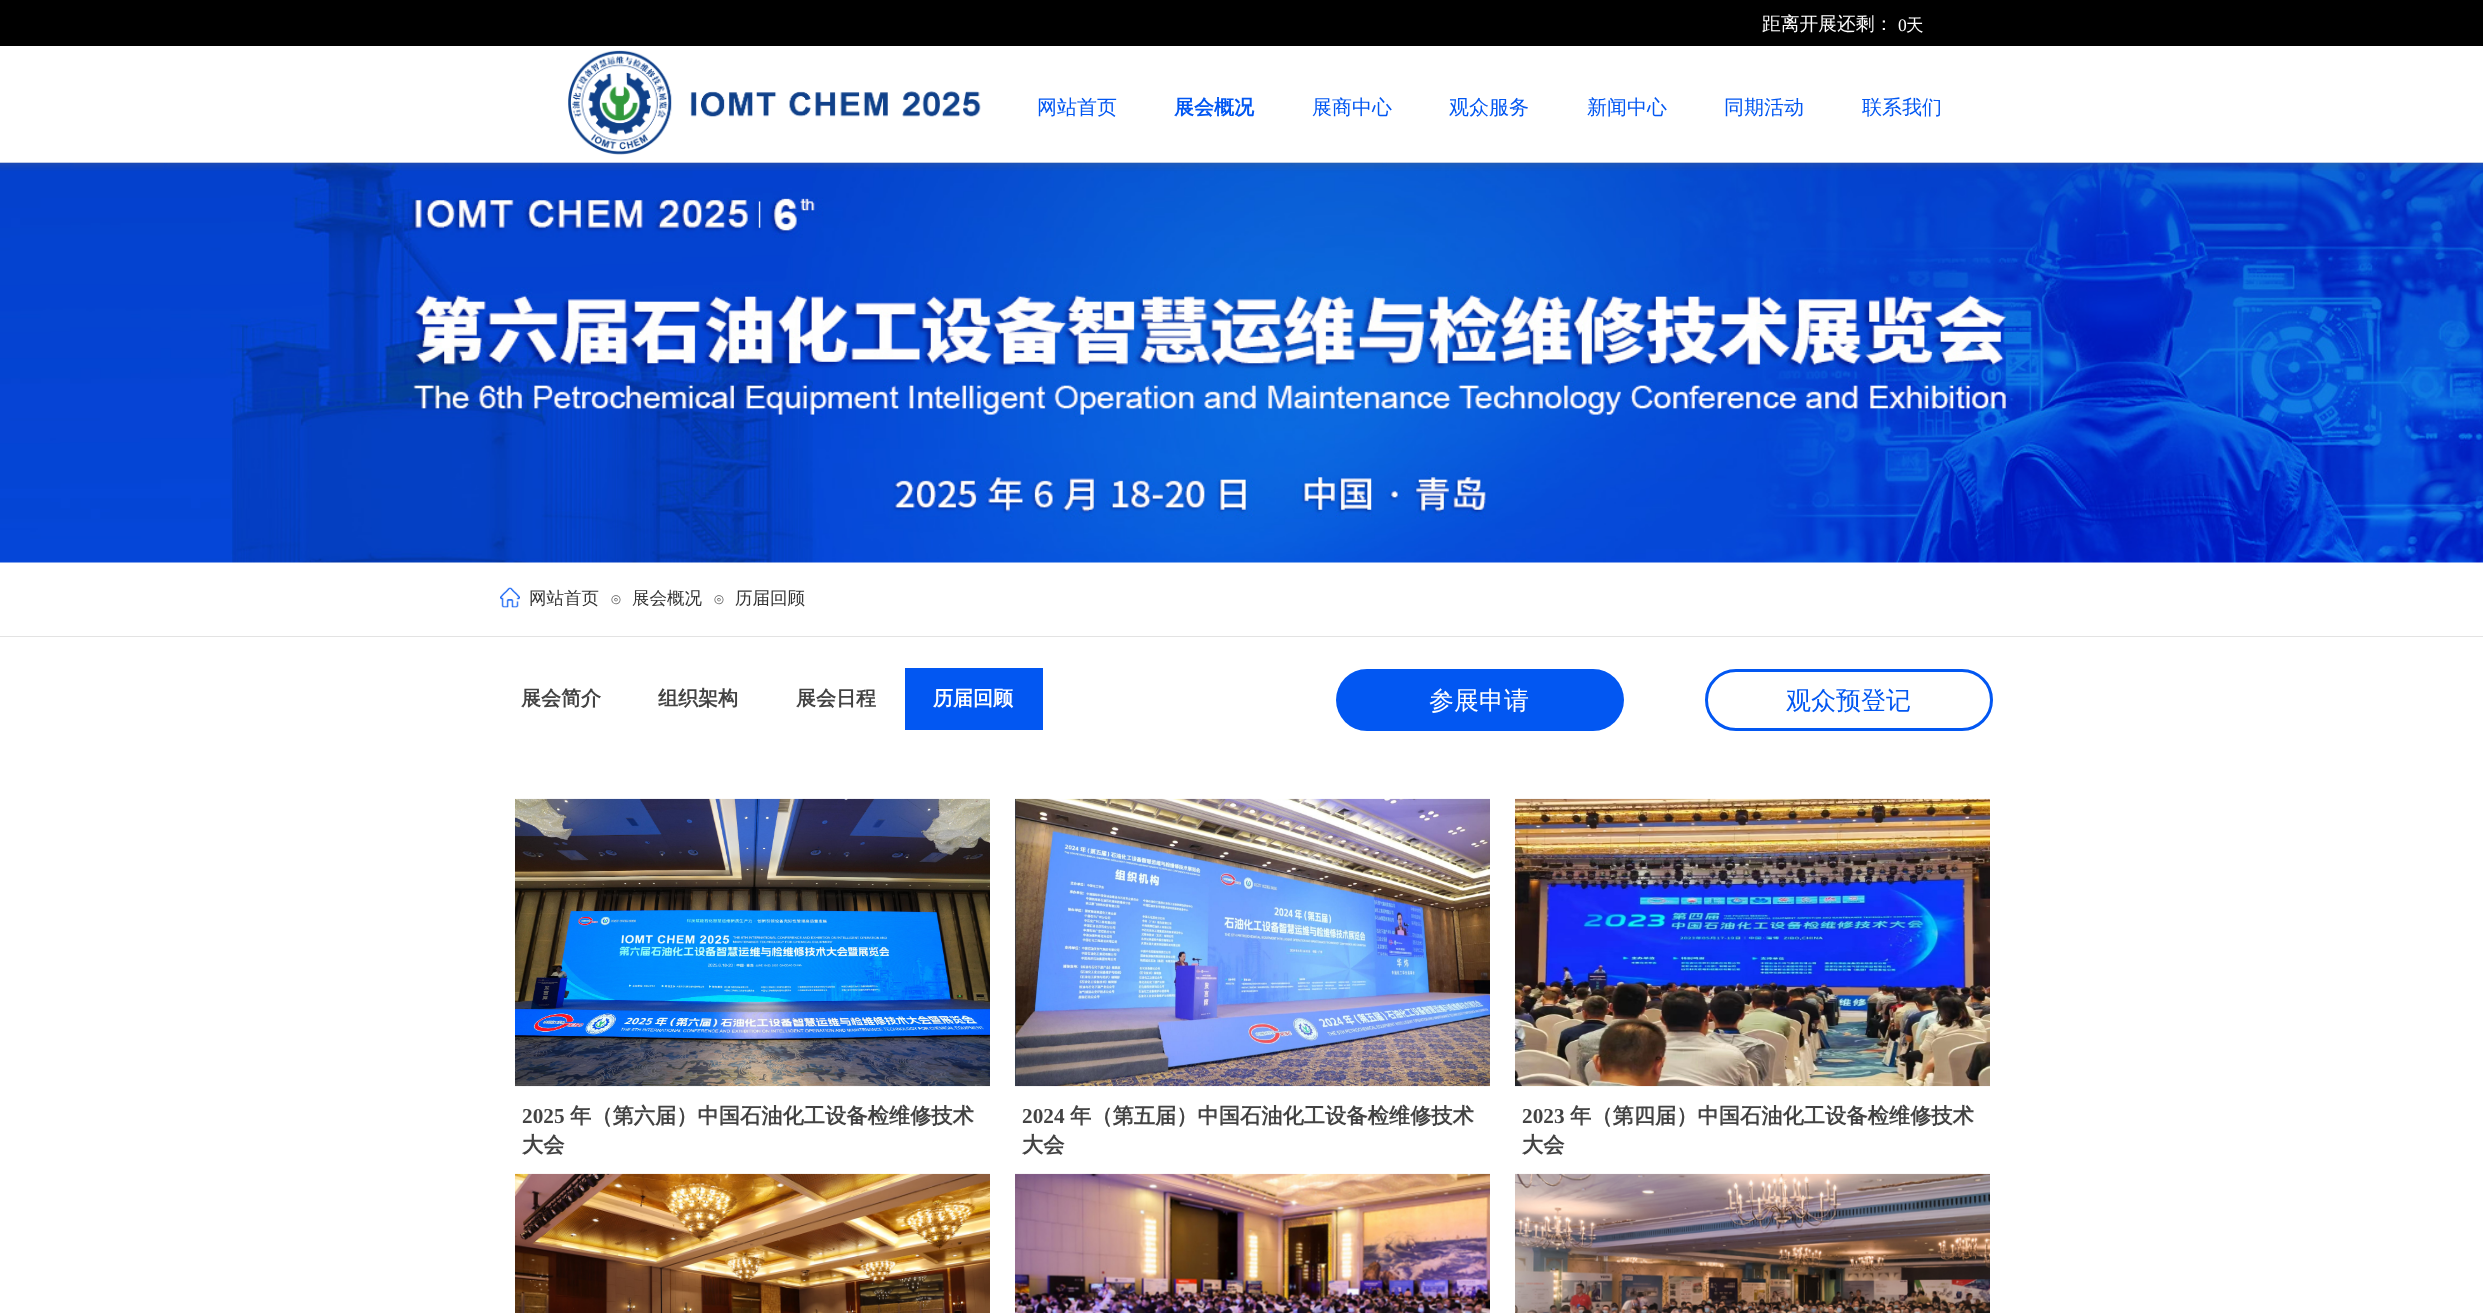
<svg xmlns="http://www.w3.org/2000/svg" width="2483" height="1313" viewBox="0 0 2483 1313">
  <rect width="100%" height="100%" fill="#fff"/>
  <path d="M0 0h2483v46H0z" fill="#000"/>
  <image x="568" y="50" width="413" height="105" href="img/1.png"/>
  <image x="0" y="162" width="2483" height="401" href="img/3.png"/>
  <image x="0" y="162" width="2483" height="9" href="img/2.png"/>
  <image x="500" y="587" width="20" height="21" href="img/4.png"/>
  <path d="M0 636h2483v1H0z" fill="#e3e3e3"/>
  <path d="M905 668h138v62H905z" fill="#0257f2"/>
  <rect x="1336" y="669" width="288" height="62" rx="31" fill="#0257f2"/>
  <rect x="1706.5" y="670.5" width="285" height="59" rx="29.5" fill="none" stroke="#0257f2" stroke-width="3"/>
  <image x="515" y="798" width="475" height="289" href="img/5.png"/>
  <image x="1015" y="798" width="475" height="289" href="img/6.png"/>
  <image x="1515" y="798" width="475" height="289" href="img/7.png"/>
  <image x="515" y="1173" width="475" height="140" href="img/8.png"/>
  <image x="1015" y="1173" width="475" height="140" href="img/9.png"/>
  <image x="1515" y="1173" width="475" height="140" href="img/10.png"/>
  <text x="1762" y="30" font-family="WenQuanYi Zen Hei" font-size="18.75" font-weight="500" fill="#fff">距离开展还剩：</text>
  <text x="1898" y="31" font-family="Liberation Serif" font-size="17.5" fill="#fff">0</text>
  <text x="1906" y="31" font-family="WenQuanYi Zen Hei" font-size="17.5" font-weight="500" fill="#fff">天</text>
  <text x="1037" y="114" font-family="WenQuanYi Zen Hei" font-size="20" font-weight="500" fill="#0257f2">网站首页</text>
  <text x="1174" y="114" font-family="WenQuanYi Zen Hei" font-size="20" font-weight="bold" fill="#0257f2">展会概况</text>
  <g font-family="WenQuanYi Zen Hei" font-size="20" font-weight="500" fill="#0257f2">
    <text x="1312" y="114">展商中心</text>
    <text x="1449" y="114">观众服务</text>
    <text x="1587" y="114">新闻中心</text>
    <text x="1724" y="114">同期活动</text>
    <text x="1862" y="114">联系我们</text>
  </g>
  <text x="529" y="604" font-family="WenQuanYi Zen Hei" font-size="17.5" font-weight="500" fill="#333">网站首页</text>
  <text x="610" y="604" font-family="WenQuanYi Zen Hei" font-size="15" font-weight="500" fill="#5a5a5a">⊙</text>
  <text x="632" y="604" font-family="WenQuanYi Zen Hei" font-size="17.5" font-weight="500" fill="#333">展会概况</text>
  <text x="713" y="604" font-family="WenQuanYi Zen Hei" font-size="15" font-weight="500" fill="#5a5a5a">⊙</text>
  <text x="735" y="604" font-family="WenQuanYi Zen Hei" font-size="17.5" font-weight="500" fill="#333">历届回顾</text>
  <g font-family="WenQuanYi Zen Hei" font-size="20" font-weight="bold" fill="#434343">
    <text x="521" y="705">展会简介</text>
    <text x="658" y="705">组织架构</text>
    <text x="796" y="705">展会日程</text>
  </g>
  <text x="933" y="705" font-family="WenQuanYi Zen Hei" font-size="20" font-weight="bold" fill="#fff">历届回顾</text>
  <text x="1429" y="709" font-family="WenQuanYi Zen Hei" font-size="25" font-weight="500" fill="#fff">参展申请</text>
  <text x="1786" y="709" font-family="WenQuanYi Zen Hei" font-size="25" font-weight="500" fill="#0257f2">观众预登记</text>
  <text x="522" y="1123" font-family="Liberation Serif" font-size="21.25" font-weight="bold" fill="#434343">2025</text>
  <g font-family="WenQuanYi Zen Hei" font-size="21.25" font-weight="bold" fill="#434343">
    <text x="570" y="1123">年（第六届）中国石油化工设备检维修技术</text>
    <text x="522" y="1152">大会</text>
  </g>
  <text x="1022" y="1123" font-family="Liberation Serif" font-size="21.25" font-weight="bold" fill="#434343">2024</text>
  <g font-family="WenQuanYi Zen Hei" font-size="21.25" font-weight="bold" fill="#434343">
    <text x="1070" y="1123">年（第五届）中国石油化工设备检维修技术</text>
    <text x="1022" y="1152">大会</text>
  </g>
  <text x="1522" y="1123" font-family="Liberation Serif" font-size="21.25" font-weight="bold" fill="#434343">2023</text>
  <g font-family="WenQuanYi Zen Hei" font-size="21.25" font-weight="bold" fill="#434343">
    <text x="1570" y="1123">年（第四届）中国石油化工设备检维修技术</text>
    <text x="1522" y="1152">大会</text>
  </g>
</svg>
